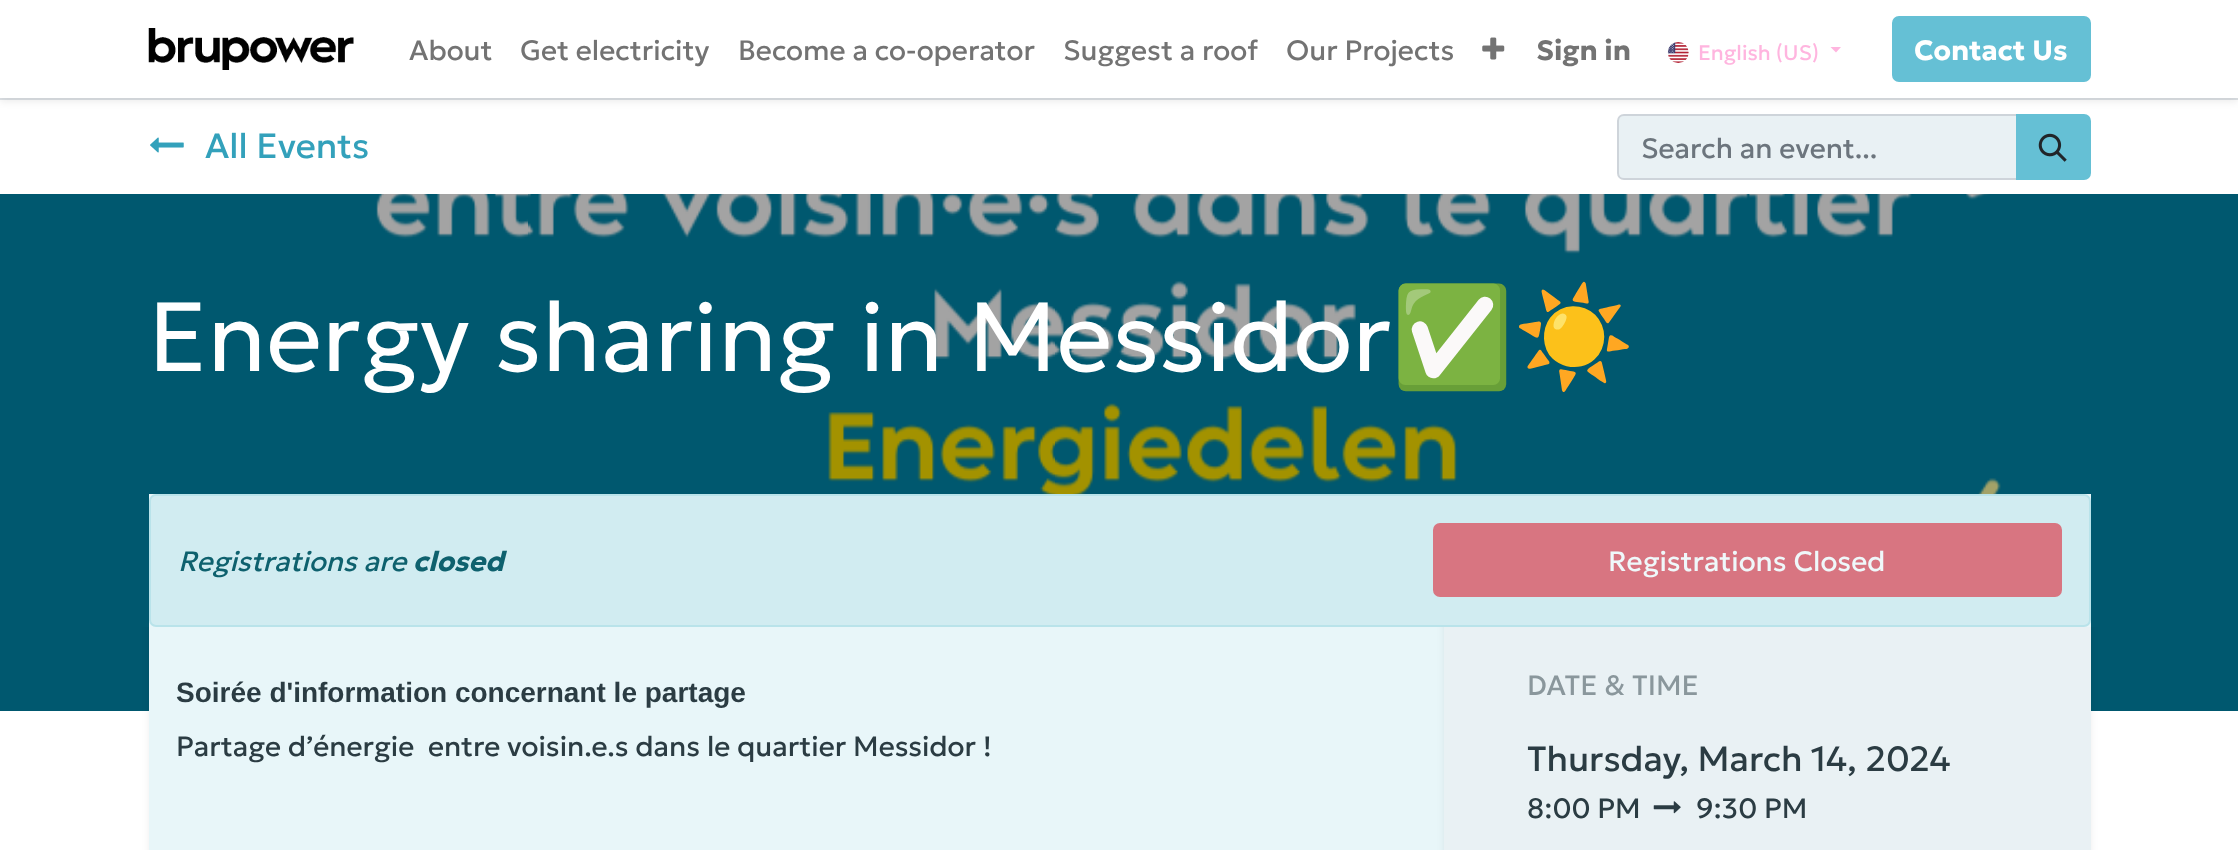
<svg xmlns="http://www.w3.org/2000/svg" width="2238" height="850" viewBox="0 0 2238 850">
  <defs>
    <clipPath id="clip1"><path d="M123 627h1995v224H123z"/></clipPath>
  </defs>
  <rect width="100%" height="100%" fill="#fff"/>
  <path d="M0 98h2238v2H0z" fill="#dee2e6"/>
  <path d="M0 4h2238v98H0z" fill="#00000012" filter="blur(3.5px)"/>
  <path d="M0 0h2238v98H0z" fill="#fff"/>
  <image x="148" y="28" width="206" height="42" href="img/1.png"/>
  <image x="1482" y="37" width="23" height="23" href="img/2.png"/>
  <image x="1667" y="42" width="22" height="21" href="img/3.png"/>
  <path d="M1830.5 47H1841L1836 52.5Z" fill="#ffb5df"/>
  <rect x="1893" y="17" width="197" height="64" rx="6" fill="#65c0d5" stroke="#65c0d5" stroke-width="2"/>
  <image x="150" y="137" width="34" height="16" href="img/4.png"/>
  <path d="M1624 115H2017V179H1624C1620.5 179 1618 176.5 1618 173V121C1618 117.5 1620.5 115 1624 115Z" fill="#e9f1f4" stroke="#ced4da" stroke-width="2"/>
  <path d="M2017 115H2084C2087.5 115 2090 117.5 2090 121V173C2090 176.5 2087.5 179 2084 179H2017Z" fill="#65c0d5" stroke="#65c0d5" stroke-width="2"/>
  <image x="2038" y="133" width="29" height="29" href="img/5.png"/>
  <image x="0" y="194" width="2238" height="517" href="img/6.png"/>
  <path d="M149 494h1942v133H149z" fill="#e8f6f9"/>
  <rect x="150" y="495" width="1940" height="131" rx="6" fill="#d1ecf1" stroke="#b9e3ea" stroke-width="2"/>
  <rect x="1434" y="524" width="627" height="72" rx="6" fill="#d87581" stroke="#d87581" stroke-width="2"/>
  <g clip-path="url(#clip1)">
    <path d="M149 588h1295v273H149z" fill="#00000012" filter="blur(3.5px)"/>
  </g>
  <path d="M149 627h1295v223H149z" fill="#e8f6f9"/>
  <g clip-path="url(#clip1)">
    <path d="M1444 588h647v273H1444z" fill="#00000012" filter="blur(3.5px)"/>
  </g>
  <path d="M1444 627h647v223H1444z" fill="#e9f1f4"/>
  <image x="1653" y="801" width="28" height="13" href="img/7.png"/>
  <g font-family="Geologica" font-size="28" fill="#737373">
    <text x="409" y="60">About</text>
    <text x="520" y="60">Get electricity</text>
    <text x="738" y="60">Become a co-operator</text>
    <text x="1063" y="60">Suggest a roof</text>
    <text x="1286" y="60">Our Projects</text>
  </g>
  <text x="1536" y="60" font-family="Geologica" font-size="28" font-weight="bold" fill="#737373">Sign in</text>
  <text x="1698" y="60" font-family="Geologica" font-size="21" fill="#ffb5df">English (US)</text>
  <text x="1914" y="60" font-family="Geologica" font-size="28" font-weight="bold" fill="#fff">Contact Us</text>
  <text x="205" y="158" font-family="Geologica" font-size="35" fill="#33a1bb">All Events</text>
  <text x="1641" y="158" font-family="Geologica" font-size="28" fill="#6c757d">Search an event...</text>
  <text x="148" y="371" font-family="Geologica" font-size="98" font-weight="300" fill="#fff">Energy sharing in Messidor</text>
  <text x="1391" y="371" font-family="Noto Color Emoji" font-size="98" fill="#fff">✅☀️</text>
  <text x="178" y="571" font-family="Geologica" font-size="28" font-style="italic" fill="#0e616e">Registrations are</text>
  <text x="413" y="571" font-family="Geologica" font-size="28" font-weight="bold" font-style="italic" fill="#0e616e">closed</text>
  <text x="1608" y="571" font-family="Geologica" font-size="28" fill="#eff8fa">Registrations Closed</text>
  <text x="176" y="702" font-family="Liberation Sans" font-size="28" font-weight="bold" fill="#2b3c43">Soirée d'information concernant le partage</text>
  <text x="176" y="756" font-family="Geologica" font-size="28" fill="#2b3c43" xml:space="preserve">Partage d’énergie  entre voisin.e.s dans le quartier Messidor !</text>
  <text x="1527" y="695" font-family="Geologica" font-size="28" fill="#8a979c">DATE &amp; TIME</text>
  <text x="1527" y="771" font-family="Geologica" font-size="35" fill="#2b3c43">Thursday, March 14, 2024</text>
  <g font-family="Geologica" font-size="28" fill="#2b3c43">
    <text x="1527" y="818">8:00 PM</text>
    <text x="1696" y="818">9:30 PM</text>
  </g>
</svg>
